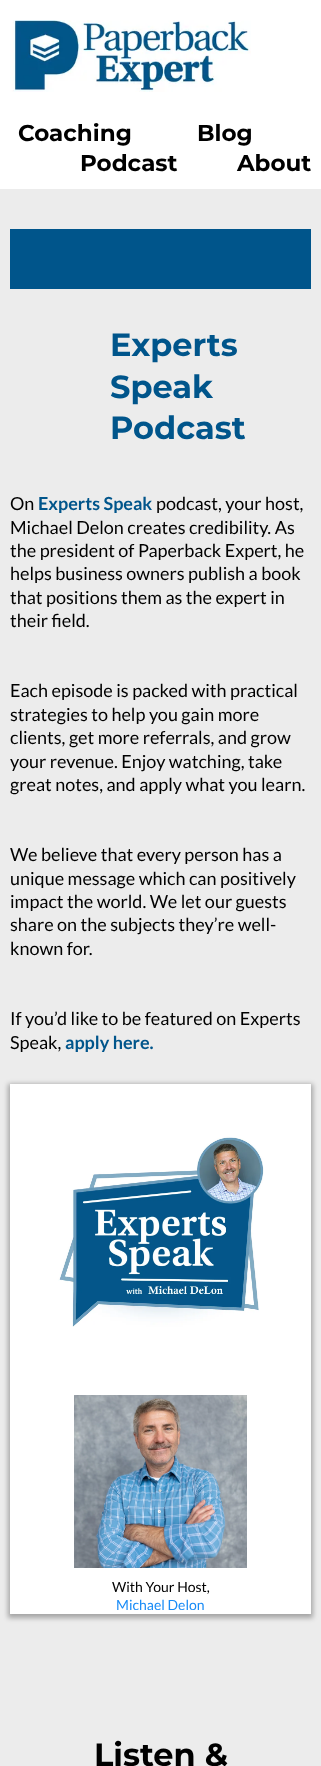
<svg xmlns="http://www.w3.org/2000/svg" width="321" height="1766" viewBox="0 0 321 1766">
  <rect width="100%" height="100%" fill="#fff"/>
  <image x="10" y="20" width="241" height="72" href="img/1.png"/>
  <path d="M0 189h321v1577H0z" fill="#ececec"/>
  <path d="M10 229h301v60H10z" fill="#00558b"/>
  <path d="M8 1084h305v534H8z" fill="#0000004d" filter="blur(2.5px)"/>
  <path d="M10 1084h301v530H10z" fill="#fff"/>
  <image x="58" y="1136" width="206" height="191" href="img/2.png"/>
  <image x="74" y="1395" width="173" height="173" href="img/3.png"/>
  <g font-family="Montserrat" font-size="23" font-weight="bold" fill="#000">
    <text x="18" y="141">Coaching</text>
    <text x="197" y="141">Blog</text>
    <text x="80" y="171">Podcast</text>
    <text x="237" y="171">About</text>
  </g>
  <g font-family="Montserrat" font-size="32" font-weight="bold" fill="#00558b">
    <text x="110" y="356">Experts</text>
    <text x="110" y="398">Speak</text>
    <text x="110" y="439">Podcast</text>
  </g>
  <text x="10" y="510" font-family="Lato" font-size="18" fill="#000">On</text>
  <text x="38" y="510" font-family="Lato" font-size="18" font-weight="bold" fill="#00558b">Experts Speak</text>
  <g font-family="Lato" font-size="18" fill="#000">
    <text x="156" y="510">podcast, your host,</text>
    <text x="10" y="534">Michael Delon creates credibility. As</text>
    <text x="10" y="557">the president of Paperback Expert, he</text>
    <text x="10" y="580">helps business owners publish a book</text>
    <text x="10" y="604">that positions them as the expert in</text>
    <text x="10" y="627">their field.</text>
    <text x="10" y="697">Each episode is packed with practical</text>
    <text x="10" y="721">strategies to help you gain more</text>
    <text x="10" y="744">clients, get more referrals, and grow</text>
    <text x="10" y="768">your revenue. Enjoy watching, take</text>
    <text x="10" y="791">great notes, and apply what you learn.</text>
    <text x="10" y="861">We believe that every person has a</text>
    <text x="10" y="885">unique message which can positively</text>
    <text x="10" y="908">impact the world. We let our guests</text>
    <text x="10" y="931">share on the subjects they’re well-</text>
    <text x="10" y="955">known for.</text>
    <text x="10" y="1025">If you’d like to be featured on Experts</text>
    <text x="10" y="1049">Speak,</text>
  </g>
  <text x="65" y="1049" font-family="Lato" font-size="18" font-weight="bold" fill="#00558b">apply here.</text>
  <text x="112" y="1592" font-family="Lato" font-size="14" fill="#000">With Your Host,</text>
  <text x="116" y="1610" font-family="Lato" font-size="14" fill="#188bf6">Michael Delon</text>
  <text x="94" y="1766" font-family="Montserrat" font-size="32" font-weight="bold" fill="#000">Listen &amp;</text>
</svg>
